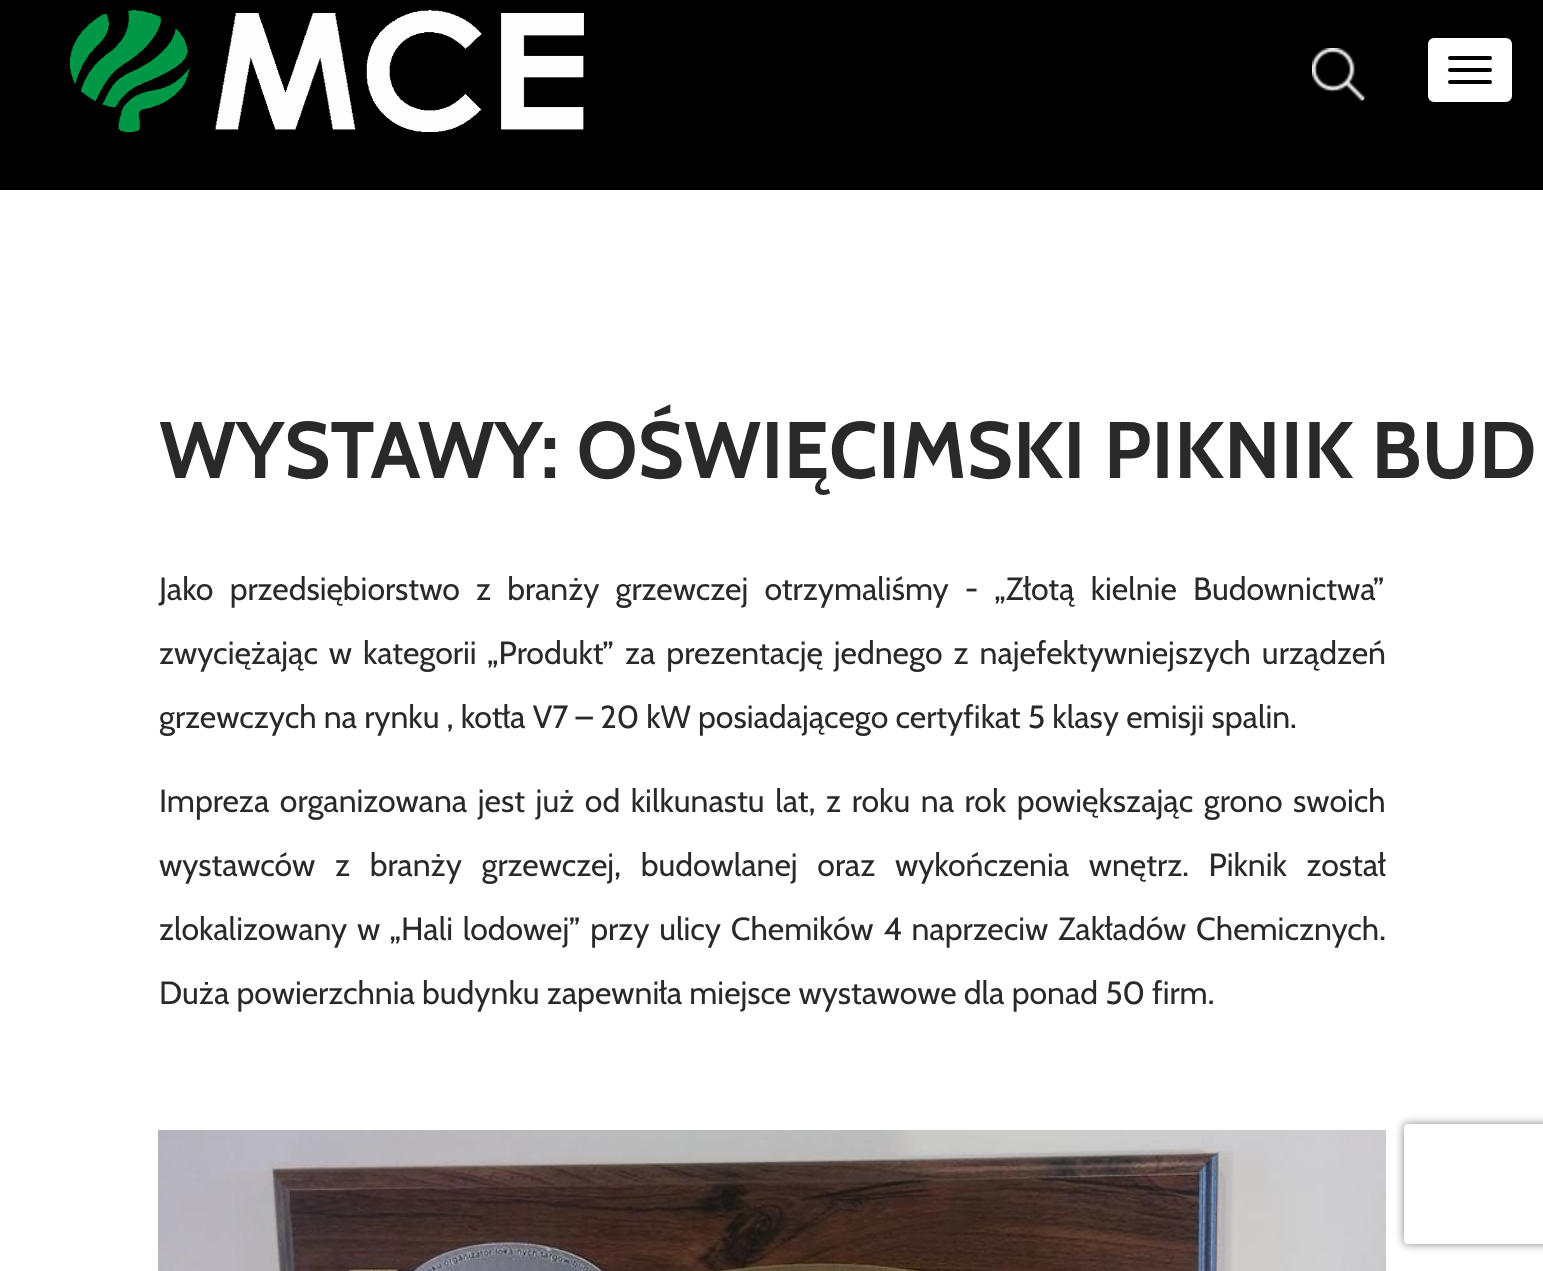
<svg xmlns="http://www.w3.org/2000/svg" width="1543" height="1271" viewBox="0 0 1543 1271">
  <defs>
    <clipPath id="clip1"><path d="M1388 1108H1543V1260H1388ZM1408 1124H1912C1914 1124 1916 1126 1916 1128V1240C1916 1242 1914 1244 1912 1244H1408C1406 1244 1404 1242 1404 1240V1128C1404 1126 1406 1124 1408 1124Z" clip-rule="evenodd"/></clipPath>
  </defs>
  <rect width="100%" height="100%" fill="#fff"/>
  <path d="M0 0h1543v190H0z" fill="#000"/>
  <image x="70" y="10" width="514" height="122" href="img/1.png"/>
  <image x="1312" y="48" width="54" height="54" href="img/2.png"/>
  <rect x="1427" y="37" width="86" height="66" rx="7" fill="#fff" stroke="#000" stroke-width="2"/>
  <rect x="1448" y="56" width="44" height="4" rx="2" fill="#000"/>
  <rect x="1448" y="68" width="44" height="4" rx="2" fill="#000"/>
  <rect x="1448" y="80" width="44" height="4" rx="2" fill="#000"/>
  <image x="158" y="1130" width="1228" height="141" href="img/3.png"/>
  <g clip-path="url(#clip1)">
    <rect x="1404" y="1124" width="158" height="120" rx="4" fill="#808080" filter="blur(5px)"/>
  </g>
  <text x="159" y="478" font-family="Cabin" font-size="80" font-weight="bold" fill="#292929">WYSTAWY: OŚWIĘCIMSKI PIKNIK BUD</text>
  <g font-family="Cabin" font-size="32" fill="#292929">
    <text x="159" y="600" word-spacing="9">Jako przedsiębiorstwo z branży grzewczej otrzymaliśmy - „Złotą kielnie Budownictwa”</text>
    <text x="159" y="664" word-spacing="3.75">zwyciężając w kategorii „Produkt” za prezentację jednego z najefektywniejszych urządzeń</text>
    <text x="159" y="728">grzewczych na rynku , kotła V7 – 20 kW posiadającego certyfikat 5 klasy emisji spalin.</text>
    <text x="159" y="812" word-spacing="3.4">Impreza organizowana jest już od kilkunastu lat, z roku na rok powiększając grono swoich</text>
    <text x="159" y="876" word-spacing="12.5">wystawców z branży grzewczej, budowlanej oraz wykończenia wnętrz. Piknik został</text>
    <text x="159" y="940" word-spacing="2.6">zlokalizowany w „Hali lodowej” przy ulicy Chemików 4 naprzeciw Zakładów Chemicznych.</text>
    <text x="159" y="1004">Duża powierzchnia budynku zapewniła miejsce wystawowe dla ponad 50 firm.</text>
  </g>
</svg>
